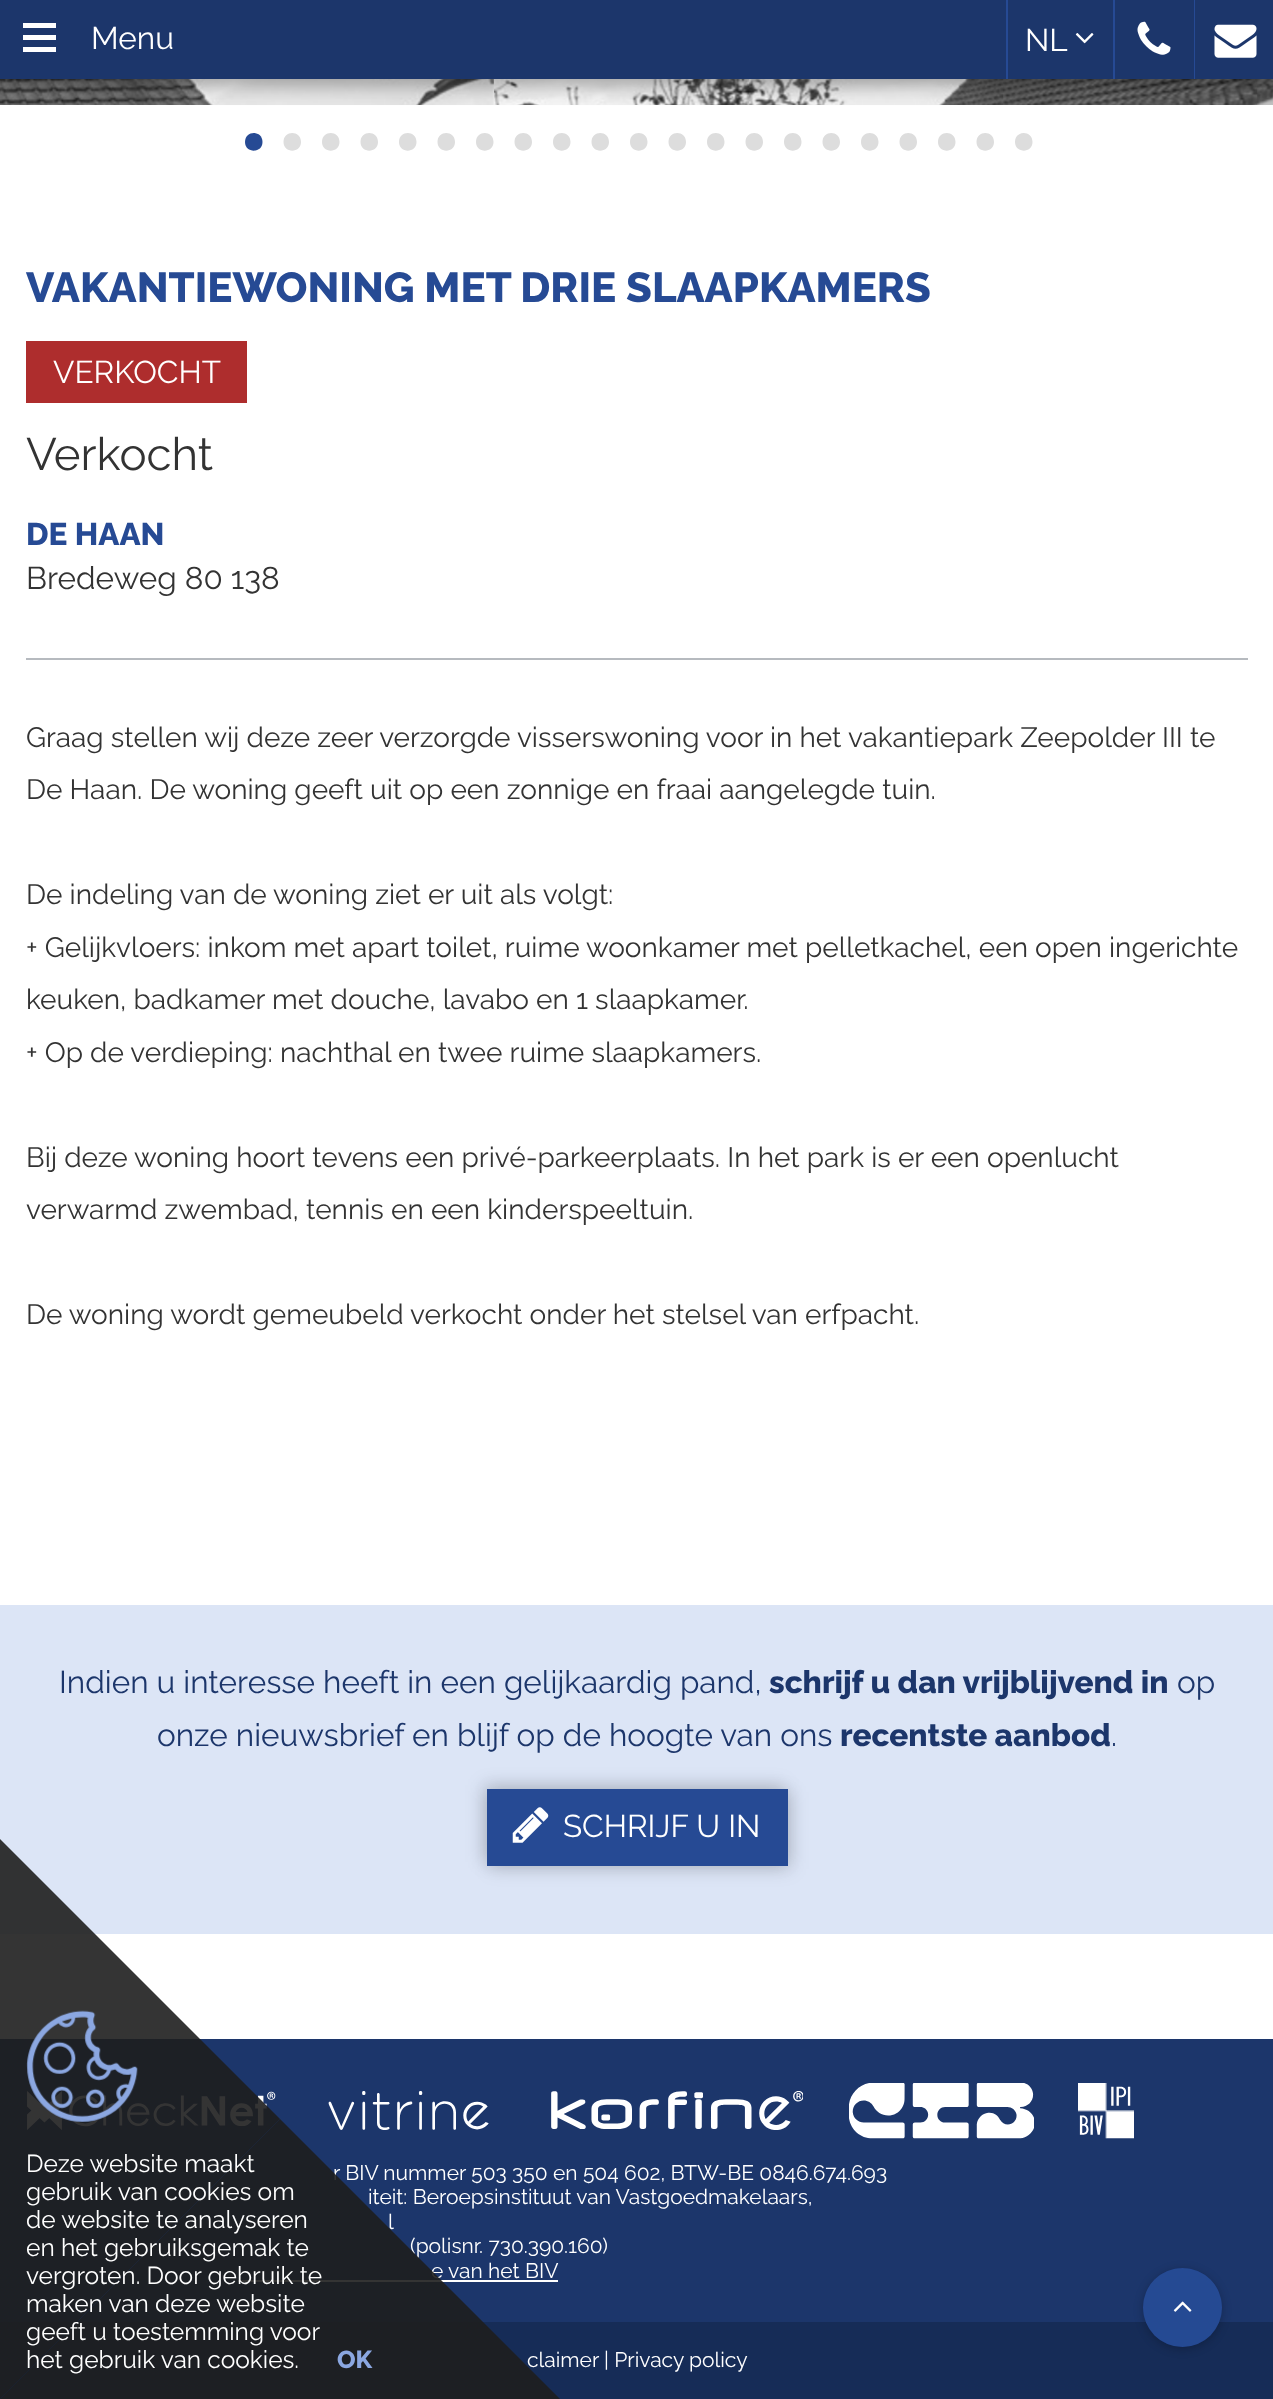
<svg xmlns="http://www.w3.org/2000/svg" width="1273" height="2399" viewBox="0 0 1273 2399">
  <defs>
    <clipPath id="clip1"><path d="M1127 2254H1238V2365H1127ZM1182.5 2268C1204.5 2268 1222 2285.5 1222 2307.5C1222 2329.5 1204.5 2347 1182.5 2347C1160.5 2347 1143 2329.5 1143 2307.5C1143 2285.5 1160.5 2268 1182.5 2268Z" clip-rule="evenodd"/></clipPath>
  </defs>
  <rect width="100%" height="100%" fill="#fff"/>
  <image x="0" y="79" width="494" height="26" href="img/4.png"/>
  <image x="494" y="79" width="779" height="26" href="img/5.png"/>
  <path d="M-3 0h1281v86H-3z" fill="#0000004d" filter="blur(9px)"/>
  <path d="M0 0h1194v79H0z" fill="#1c366b"/>
  <path d="M23 35h33v5H23z" fill="#fff"/>
  <path d="M23 23h33v5H23z" fill="#fff"/>
  <path d="M23 47h33v5H23z" fill="#fff"/>
  <path d="M1006 0h2v79H1006z" fill="#264a94"/>
  <image x="1075" y="33" width="19" height="11" href="img/1.png"/>
  <path d="M1113 0h2v79H1113z" fill="#264a94"/>
  <image x="1137" y="21" width="34" height="34" href="img/2.png"/>
  <path d="M1194 0h1v79H1194z" fill="#264a94"/>
  <path d="M1195 0h78v79H1195z" fill="#1c366b"/>
  <image x="1214" y="24" width="43" height="34" href="img/3.png"/>
  <path d="M262.5 142C262.5 130 245 130 245 142C245 153.5 262.5 153.5 262.5 142Z" fill="#264a94"/>
  <path d="M301 142C301 130 283.5 130 283.5 142C283.5 153.5 301 153.5 301 142ZM339.5 142C339.5 130 322 130 322 142C322 153.5 339.5 153.5 339.5 142Z" fill="#ddd"/>
  <path d="M378 142C378 130 360.5 130 360.5 142C360.5 153.5 378 153.5 378 142ZM416.5 142C416.5 130 399 130 399 142C399 153.5 416.5 153.5 416.5 142Z" fill="#ddd"/>
  <path d="M455 142C455 130 437.5 130 437.5 142C437.5 153.5 455 153.5 455 142ZM493.5 142C493.5 130 476 130 476 142C476 153.5 493.5 153.5 493.5 142Z" fill="#ddd"/>
  <path d="M532 142C532 130 514.5 130 514.5 142C514.5 153.5 532 153.5 532 142ZM570.5 142C570.5 130 553 130 553 142C553 153.5 570.5 153.5 570.5 142Z" fill="#ddd"/>
  <path d="M609 142C609 130 591.5 130 591.5 142C591.5 153.5 609 153.5 609 142ZM647.5 142C647.5 130 630 130 630 142C630 153.5 647.5 153.5 647.5 142Z" fill="#ddd"/>
  <path d="M686 142C686 130 668.5 130 668.5 142C668.5 153.5 686 153.5 686 142ZM724.5 142C724.5 130 707 130 707 142C707 153.5 724.5 153.5 724.5 142Z" fill="#ddd"/>
  <path d="M763 142C763 130 745.5 130 745.5 142C745.5 153.5 763 153.5 763 142ZM801.5 142C801.5 130 784 130 784 142C784 153.5 801.5 153.5 801.5 142Z" fill="#ddd"/>
  <path d="M840 142C840 130 822.5 130 822.5 142C822.5 153.5 840 153.5 840 142ZM878.5 142C878.5 130 861 130 861 142C861 153.5 878.5 153.5 878.5 142Z" fill="#ddd"/>
  <path d="M917 142C917 130 899.5 130 899.5 142C899.5 153.5 917 153.5 917 142ZM955.5 142C955.5 130 938 130 938 142C938 153.5 955.5 153.5 955.5 142Z" fill="#ddd"/>
  <path d="M994 142C994 130 976.5 130 976.5 142C976.5 153.5 994 153.5 994 142ZM1032.5 142C1032.5 130 1015 130 1015 142C1015 153.5 1032.5 153.5 1032.5 142Z" fill="#ddd"/>
  <path d="M26 658h1222v2H26z" fill="#b6babf"/>
  <path d="M26 341h221v62H26z" fill="#ae2d2d"/>
  <path d="M0 1605h1273v329H0z" fill="#dce5f6"/>
  <path d="M483 1785h301v77H483z" fill="#00000026" filter="blur(9px)"/>
  <path d="M490 1792h301v77H490z" fill="#00000026" filter="blur(9px)"/>
  <path d="M487 1789h301v77H487z" fill="#264a94"/>
  <image x="512" y="1807" width="37" height="36" href="img/6.png"/>
  <path d="M0 2039h1273v283H0z" fill="#1c366b"/>
  <image x="27" y="2091" width="249" height="39" href="img/8.png"/>
  <image x="328" y="2091" width="161" height="39" href="img/9.png"/>
  <image x="551" y="2091" width="252" height="39" href="img/10.png"/>
  <image x="849" y="2083" width="185" height="56" href="img/11.png"/>
  <image x="1078" y="2083" width="56" height="56" href="img/12.png"/>
  <path d="M238 2280h320v2H238z" fill="#fff"/>
  <path d="M0 2322h1273v77H0z" fill="#162c57"/>
  <circle cx="1182.5" cy="2307.5" r="39.5" fill="#264a94"/>
  <g clip-path="url(#clip1)">
    <rect x="1143" y="2270" width="79" height="79" rx="39.5" fill="#0000003d" filter="blur(5px)"/>
  </g>
  <circle cx="1182.5" cy="2307.5" r="39.5" fill="#264a943d"/>
  <image x="1173" y="2301" width="19" height="11" href="img/13.png"/>
  <g font-family="Raleway" font-size="31.5" fill="#fff">
    <text x="91" y="49">Menu</text>
    <text x="1025" y="51">NL</text>
  </g>
  <text x="26" y="302" font-family="Raleway" font-size="42" font-weight="800" fill="#264a94">VAKANTIEWONING MET DRIE SLAAPKAMERS</text>
  <text x="53" y="383" font-family="Raleway" font-size="31.5" fill="#fff">VERKOCHT</text>
  <text x="26" y="470" font-family="Raleway" font-size="45.5" fill="#333">Verkocht</text>
  <text x="26" y="545" font-family="Raleway" font-size="31.5" font-weight="800" fill="#264a94">DE HAAN</text>
  <text x="26" y="589" font-family="Raleway" font-size="31.5" fill="#333">Bredeweg 80 138</text>
  <g font-family="Raleway" font-size="28" fill="#333">
    <text x="26" y="747">Graag stellen wij deze zeer verzorgde visserswoning voor in het vakantiepark Zeepolder III te</text>
    <text x="26" y="799">De Haan. De woning geeft uit op een zonnige en fraai aangelegde tuin.</text>
    <text x="26" y="904">De indeling van de woning ziet er uit als volgt:</text>
    <text x="26" y="957">+ Gelijkvloers: inkom met apart toilet, ruime woonkamer met pelletkachel, een open ingerichte</text>
    <text x="26" y="1009">keuken, badkamer met douche, lavabo en 1 slaapkamer.</text>
    <text x="26" y="1062">+ Op de verdieping: nachthal en twee ruime slaapkamers.</text>
    <text x="26" y="1167">Bij deze woning hoort tevens een privé-parkeerplaats. In het park is er een openlucht</text>
    <text x="26" y="1219">verwarmd zwembad, tennis en een kinderspeeltuin.</text>
    <text x="26" y="1324">De woning wordt gemeubeld verkocht onder het stelsel van erfpacht.</text>
  </g>
  <text x="59" y="1693" font-family="Raleway" font-size="31.5" fill="#1c366b">Indien u interesse heeft in een gelijkaardig pand,</text>
  <text x="769" y="1693" font-family="Raleway" font-size="31.5" font-weight="800" fill="#1c366b">schrijf u dan vrijblijvend in</text>
  <g font-family="Raleway" font-size="31.5" fill="#1c366b">
    <text x="1177" y="1693">op</text>
    <text x="157" y="1746">onze nieuwsbrief en blijf op de hoogte van ons</text>
  </g>
  <text x="840" y="1746" font-family="Raleway" font-size="31.5" font-weight="800" fill="#1c366b">recentste aanbod</text>
  <text x="1111" y="1746" font-family="Raleway" font-size="31.5" fill="#1c366b">.</text>
  <text x="563" y="1837" font-family="Raleway" font-size="31.5" fill="#fff">SCHRIJF U IN</text>
  <g font-family="Raleway" font-size="21" fill="#fff">
    <text x="333" y="2180">r BIV nummer 503 350 en 504 602, BTW-BE 0846.674.693</text>
    <text x="368" y="2204">iteit: Beroepsinstituut van Vastgoedmakelaars,</text>
    <text x="388" y="2229">l</text>
    <text x="410" y="2253">(polisnr. 730.390.160)</text>
    <text x="431" y="2278">e van het BIV</text>
    <text x="527" y="2367">claimer</text>
  </g>
  <path d="M560 2399H0L280 2119Z" fill="#1e1e1ee6"/>
  <path d="M0 2399V1839L280 2119Z" fill="#1e1e1ee6"/>
  <image x="26" y="2010" width="112" height="112" href="img/7.png"/>
  <text x="337" y="2368" font-family="Raleway" font-size="24.5" font-weight="800" fill="#8ba7e1">OK</text>
  <g font-family="Raleway" font-size="24.5" fill="#fff">
    <text x="26" y="2368">het gebruik van cookies.</text>
    <text x="26" y="2340">geeft u toestemming voor</text>
    <text x="26" y="2312">maken van deze website</text>
    <text x="26" y="2284">vergroten. Door gebruik te</text>
    <text x="26" y="2256">en het gebruiksgemak te</text>
    <text x="26" y="2228">de website te analyseren</text>
    <text x="26" y="2200">gebruik van cookies om</text>
    <text x="26" y="2172">Deze website maakt</text>
  </g>
  <text x="604" y="2367" font-family="Raleway" font-size="21" fill="#fff">| Privacy policy</text>
</svg>
